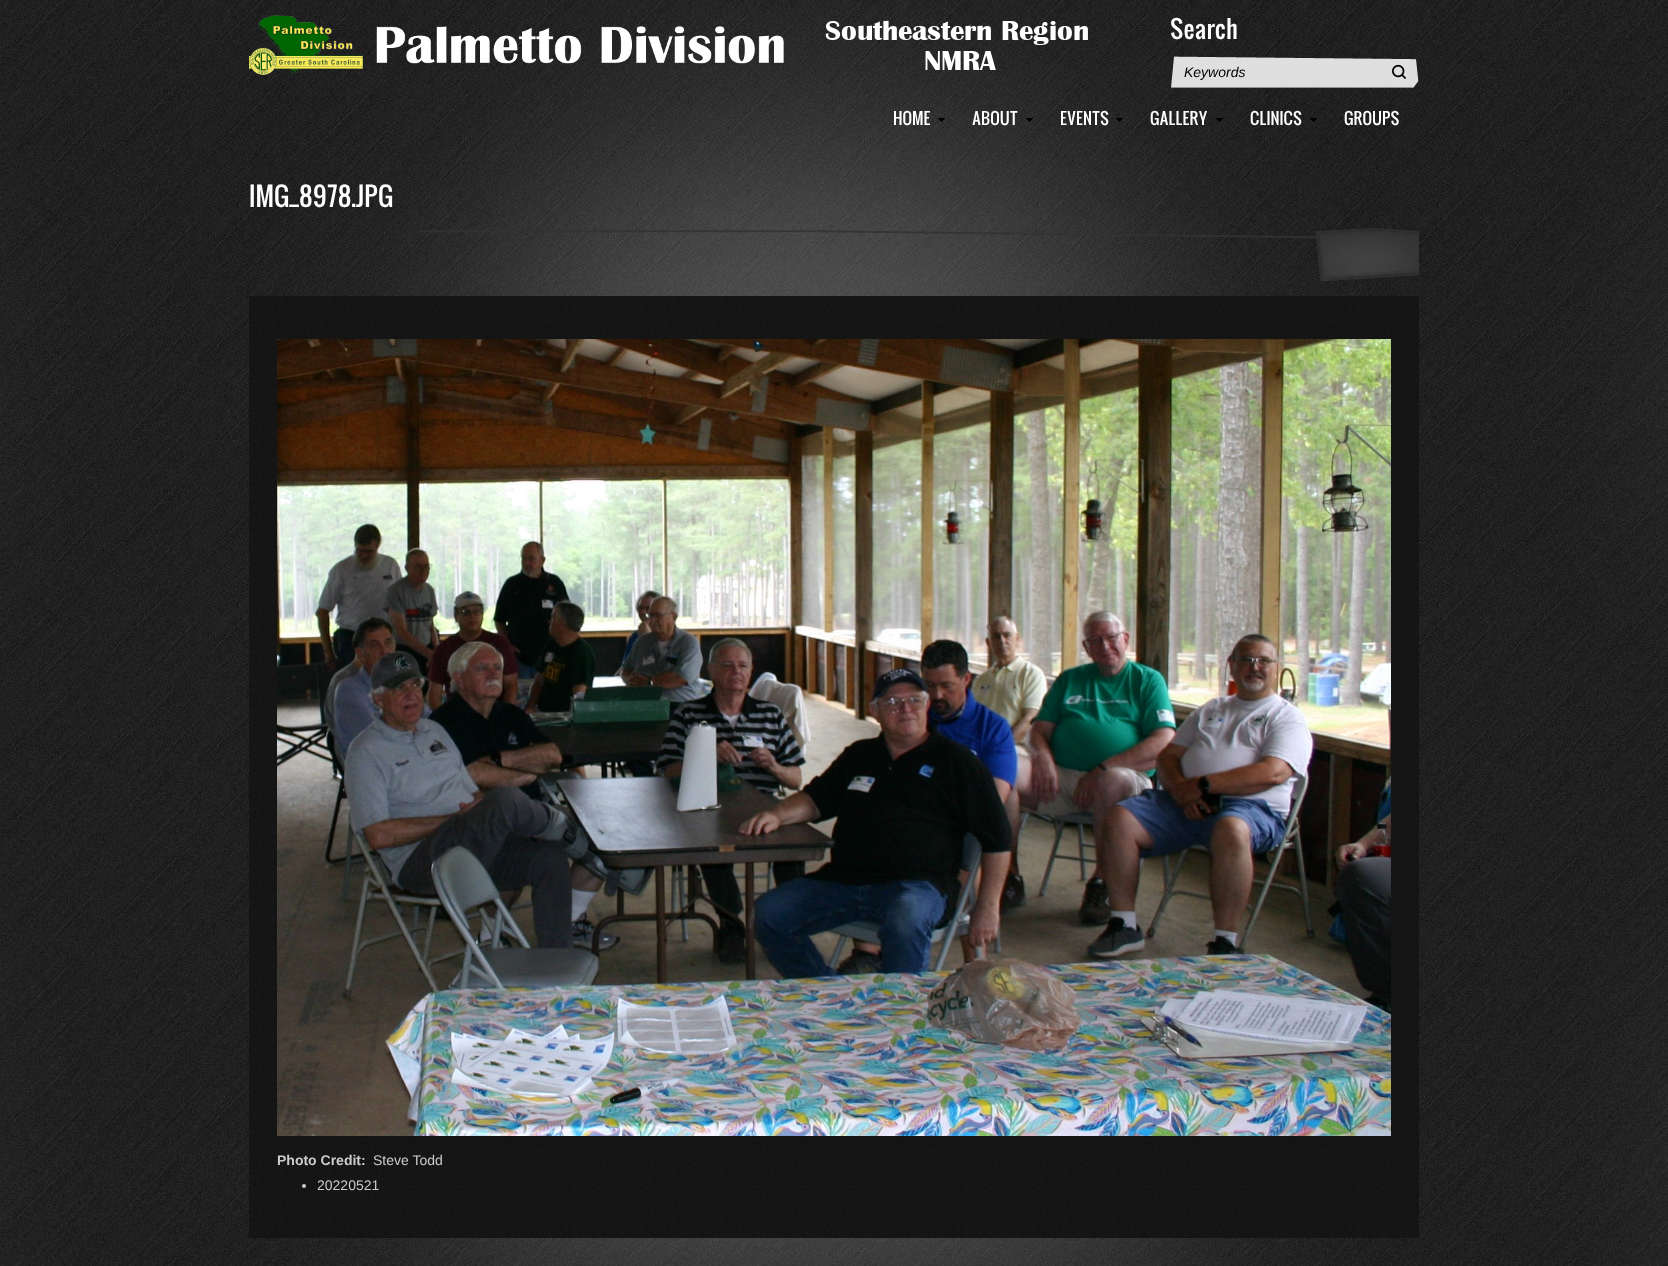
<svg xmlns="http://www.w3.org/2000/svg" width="1668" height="1266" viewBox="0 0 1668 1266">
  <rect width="100%" height="100%" fill="#fff"/>
  <image x="0" y="0" width="1668" height="1266" href="img/1.png"/>
  <image x="249" y="15" width="839" height="60" href="img/2.png"/>
  <image x="1171" y="56" width="248" height="32" href="img/3.png"/>
  <image x="1392" y="64" width="14" height="15" href="img/4.png"/>
  <image x="938" y="118" width="7" height="4" href="img/5.png"/>
  <image x="1026" y="118" width="7" height="4" href="img/6.png"/>
  <image x="1116" y="118" width="7" height="4" href="img/7.png"/>
  <image x="1216" y="118" width="7" height="4" href="img/8.png"/>
  <image x="1310" y="118" width="7" height="4" href="img/9.png"/>
  <image x="419" y="228" width="1000" height="53" href="img/10.png"/>
  <image x="249" y="296" width="1170" height="942" href="img/11.png"/>
  <image x="277" y="339" width="1114" height="797" href="img/12.png"/>
  <circle cx="304" cy="1186" r="2" fill="#ccc"/>
  <text x="1170" y="39" font-family="Oswald" font-size="24" fill="#fff">Search</text>
  <text x="1184" y="77" font-family="Liberation Sans" font-size="14" font-style="italic" fill="#000">Keywords</text>
  <g font-family="Oswald" font-size="16" fill="#fff">
    <text x="893" y="125">HOME</text>
    <text x="972" y="125">ABOUT</text>
    <text x="1060" y="125">EVENTS</text>
    <text x="1150" y="125">GALLERY</text>
    <text x="1250" y="125">CLINICS</text>
    <text x="1344" y="125">GROUPS</text>
  </g>
  <text x="249" y="207" font-family="Oswald" font-size="25.75" fill="#fff">IMG_8978.JPG</text>
  <text x="277" y="1165" font-family="Liberation Sans" font-size="14" font-weight="bold" fill="#ccc">Photo Credit:</text>
  <g font-family="Liberation Sans" font-size="14" fill="#ccc">
    <text x="373" y="1165">Steve Todd</text>
    <text x="317" y="1190">20220521</text>
  </g>
</svg>
